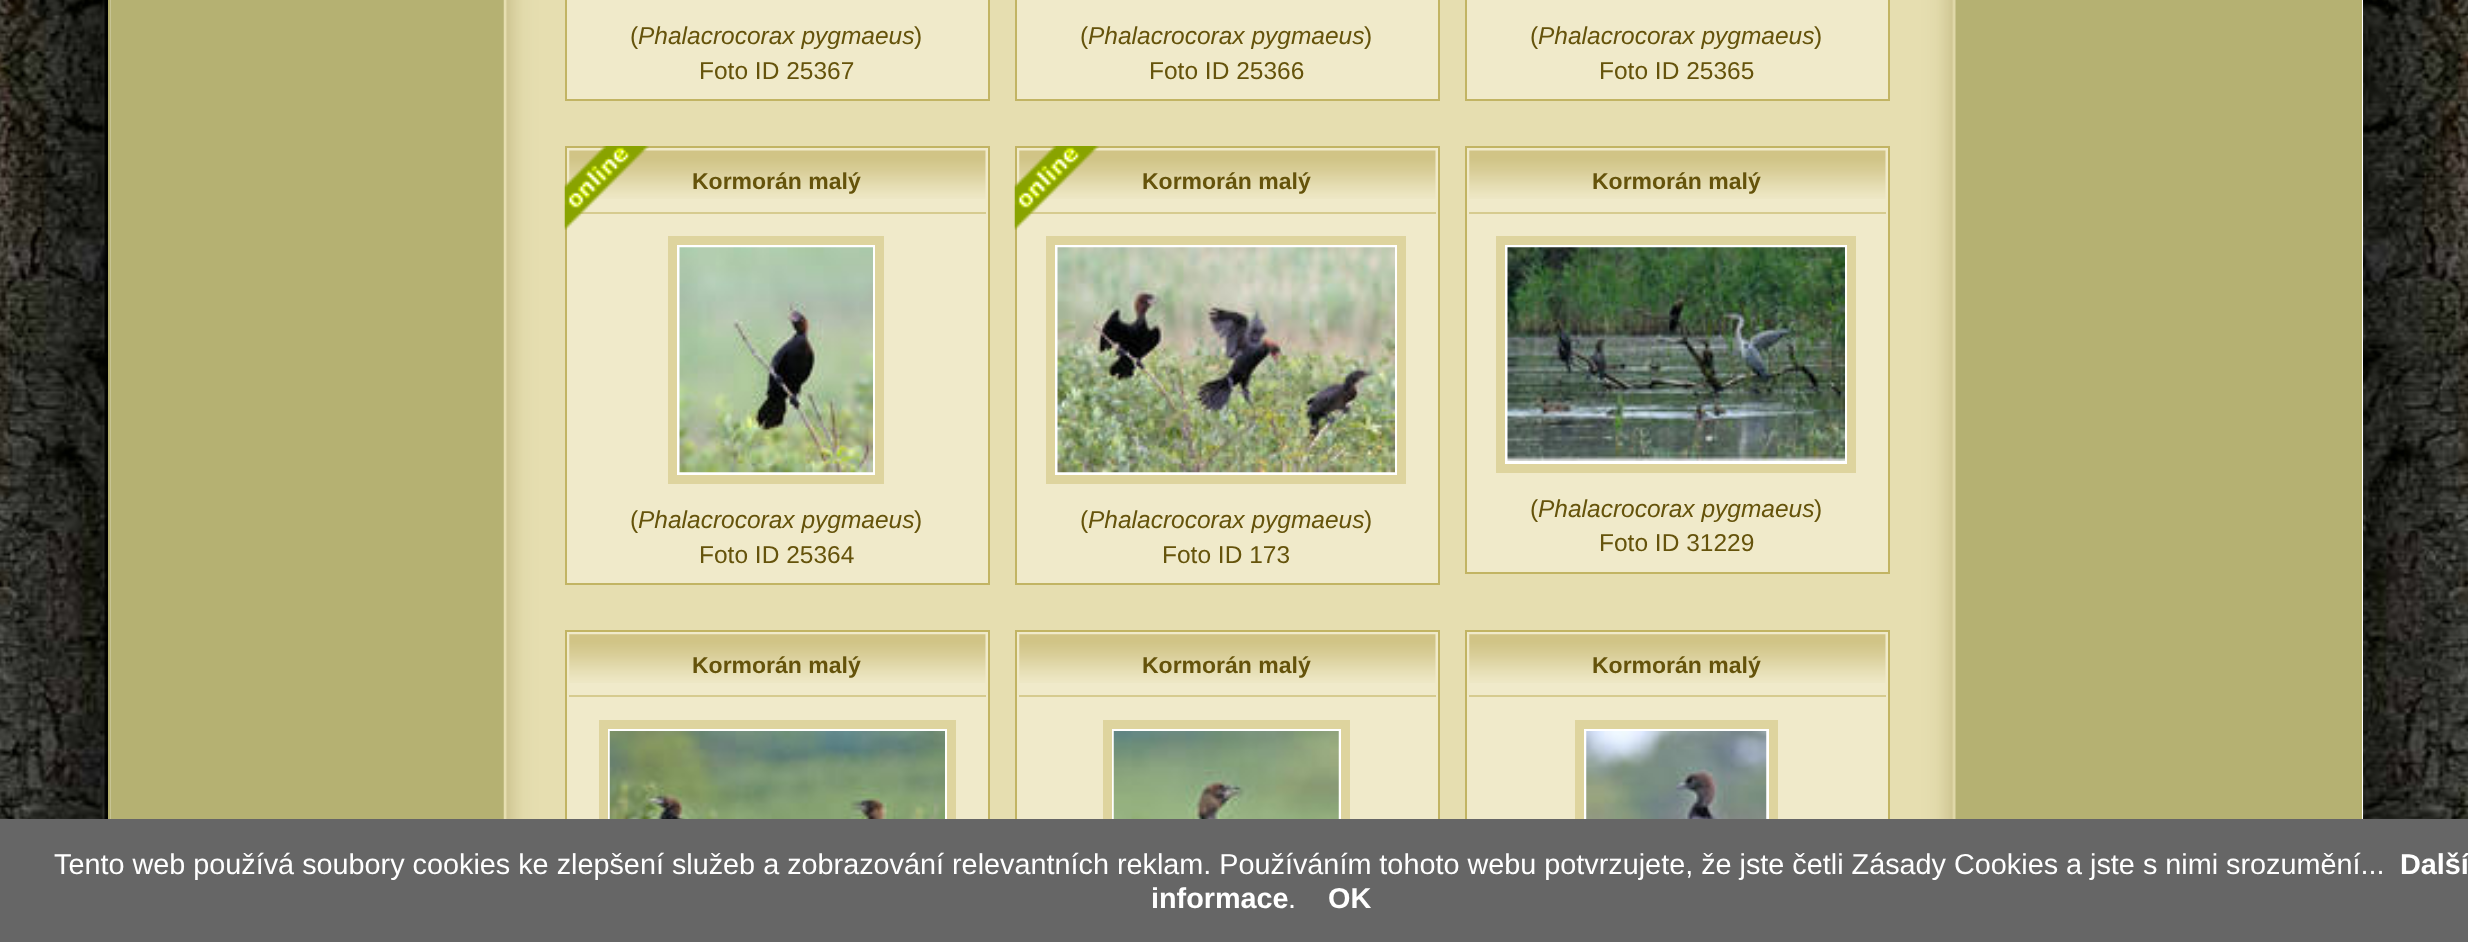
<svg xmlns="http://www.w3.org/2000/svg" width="2468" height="942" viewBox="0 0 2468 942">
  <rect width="100%" height="100%" fill="#fff"/>
  <image x="0" y="0" width="2468" height="819" href="img/1.png"/>
  <path d="M110 0h2253v819H110z" fill="#fff"/>
  <image x="110" y="0" width="394" height="819" href="img/2.png"/>
  <path d="M2360 0h2v819H2360z" fill="#b5b06c"/>
  <path d="M108 0h2v819H108z" fill="#b5b06c"/>
  <path d="M504 0h2v819H504z" fill="#e6deb0"/>
  <image x="506" y="0" width="1854" height="819" href="img/3.png"/>
  <path d="M566 -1h423v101H566z" fill="#f0eaca" stroke="#c2b463" stroke-width="2"/>
  <path d="M1016 -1h423v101H1016z" fill="#f0eaca" stroke="#c2b463" stroke-width="2"/>
  <path d="M1466 -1h423v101H1466z" fill="#f0eaca" stroke="#c2b463" stroke-width="2"/>
  <path d="M566 147h423v437H566z" fill="#f0eaca" stroke="#c2b463" stroke-width="2"/>
  <image x="569" y="150" width="417" height="49" href="img/5.png"/>
  <path d="M569 212h417v2H569z" fill="#d6cb8f"/>
  <image x="564" y="146" width="85" height="84" href="img/4.png"/>
  <path d="M672.5 240.5h207v239H672.5z" fill="#fff" stroke="#ded49e" stroke-width="9"/>
  <image x="679" y="247" width="194" height="226" href="img/6.png"/>
  <path d="M1016 147h423v437H1016z" fill="#f0eaca" stroke="#c2b463" stroke-width="2"/>
  <image x="1019" y="150" width="417" height="49" href="img/5.png"/>
  <path d="M1019 212h417v2H1019z" fill="#d6cb8f"/>
  <image x="1014" y="146" width="85" height="84" href="img/7.png"/>
  <path d="M1050.5 240.5h351v239H1050.5z" fill="#fff" stroke="#ded49e" stroke-width="9"/>
  <image x="1057" y="247" width="338" height="226" href="img/8.png"/>
  <path d="M1466 147h423v426H1466z" fill="#f0eaca" stroke="#c2b463" stroke-width="2"/>
  <image x="1469" y="150" width="417" height="49" href="img/5.png"/>
  <path d="M1469 212h417v2H1469z" fill="#d6cb8f"/>
  <path d="M1500.5 240.5h351v228H1500.5z" fill="#fff" stroke="#ded49e" stroke-width="9"/>
  <image x="1507" y="247" width="338" height="214" href="img/9.png"/>
  <path d="M567 632h421v187H567z" fill="#f0eaca"/>
  <path d="M566 631h423v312H566z" fill="none" stroke="#c2b463" stroke-width="2"/>
  <image x="569" y="634" width="417" height="49" href="img/10.png"/>
  <path d="M569 695h417v2H569z" fill="#d6cb8f"/>
  <path d="M608 729h339v90H608z" fill="#fff"/>
  <path d="M603.5 724.5h348v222H603.5z" fill="none" stroke="#ded49e" stroke-width="9"/>
  <image x="609" y="731" width="336" height="88" href="img/11.png"/>
  <path d="M1017 632h421v187H1017z" fill="#f0eaca"/>
  <path d="M1016 631h423v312H1016z" fill="none" stroke="#c2b463" stroke-width="2"/>
  <image x="1019" y="634" width="417" height="49" href="img/10.png"/>
  <path d="M1019 695h417v2H1019z" fill="#d6cb8f"/>
  <path d="M1112 729h229v90H1112z" fill="#fff"/>
  <path d="M1107.5 724.5h238v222H1107.5z" fill="none" stroke="#ded49e" stroke-width="9"/>
  <image x="1113" y="731" width="226" height="88" href="img/12.png"/>
  <path d="M1467 632h421v187H1467z" fill="#f0eaca"/>
  <path d="M1466 631h423v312H1466z" fill="none" stroke="#c2b463" stroke-width="2"/>
  <image x="1469" y="634" width="417" height="49" href="img/10.png"/>
  <path d="M1469 695h417v2H1469z" fill="#d6cb8f"/>
  <path d="M1584 729h185v90H1584z" fill="#fff"/>
  <path d="M1579.5 724.5h194v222H1579.5z" fill="none" stroke="#ded49e" stroke-width="9"/>
  <image x="1586" y="731" width="181" height="88" href="img/13.png"/>
  <path d="M0 819h2468v123H0z" fill="#666"/>
  <text x="630" y="44" font-family="Liberation Sans" font-size="24.5" fill="#65530b">(</text>
  <text x="638" y="44" font-family="Liberation Sans" font-size="24.5" font-style="italic" fill="#65530b">Phalacrocorax pygmaeus</text>
  <g font-family="Liberation Sans" font-size="24.5" fill="#65530b">
    <text x="914" y="44">)</text>
    <text x="699" y="79">Foto ID 25367</text>
    <text x="1080" y="44">(</text>
  </g>
  <text x="1088" y="44" font-family="Liberation Sans" font-size="24.5" font-style="italic" fill="#65530b">Phalacrocorax pygmaeus</text>
  <g font-family="Liberation Sans" font-size="24.5" fill="#65530b">
    <text x="1364" y="44">)</text>
    <text x="1149" y="79">Foto ID 25366</text>
    <text x="1530" y="44">(</text>
  </g>
  <text x="1538" y="44" font-family="Liberation Sans" font-size="24.5" font-style="italic" fill="#65530b">Phalacrocorax pygmaeus</text>
  <g font-family="Liberation Sans" font-size="24.5" fill="#65530b">
    <text x="1814" y="44">)</text>
    <text x="1599" y="79">Foto ID 25365</text>
  </g>
  <text x="692" y="189" font-family="Liberation Sans" font-size="23" font-weight="bold" fill="#65530b">Kormorán malý</text>
  <text x="630" y="528" font-family="Liberation Sans" font-size="24.5" fill="#65530b">(</text>
  <text x="638" y="528" font-family="Liberation Sans" font-size="24.5" font-style="italic" fill="#65530b">Phalacrocorax pygmaeus</text>
  <g font-family="Liberation Sans" font-size="24.5" fill="#65530b">
    <text x="914" y="528">)</text>
    <text x="699" y="563">Foto ID 25364</text>
  </g>
  <text x="1142" y="189" font-family="Liberation Sans" font-size="23" font-weight="bold" fill="#65530b">Kormorán malý</text>
  <text x="1080" y="528" font-family="Liberation Sans" font-size="24.5" fill="#65530b">(</text>
  <text x="1088" y="528" font-family="Liberation Sans" font-size="24.5" font-style="italic" fill="#65530b">Phalacrocorax pygmaeus</text>
  <g font-family="Liberation Sans" font-size="24.5" fill="#65530b">
    <text x="1364" y="528">)</text>
    <text x="1162" y="563">Foto ID 173</text>
  </g>
  <text x="1592" y="189" font-family="Liberation Sans" font-size="23" font-weight="bold" fill="#65530b">Kormorán malý</text>
  <text x="1530" y="517" font-family="Liberation Sans" font-size="24.5" fill="#65530b">(</text>
  <text x="1538" y="517" font-family="Liberation Sans" font-size="24.5" font-style="italic" fill="#65530b">Phalacrocorax pygmaeus</text>
  <g font-family="Liberation Sans" font-size="24.5" fill="#65530b">
    <text x="1814" y="517">)</text>
    <text x="1599" y="551">Foto ID 31229</text>
  </g>
  <g font-family="Liberation Sans" font-size="23" font-weight="bold" fill="#65530b">
    <text x="692" y="673">Kormorán malý</text>
    <text x="1142" y="673">Kormorán malý</text>
    <text x="1592" y="673">Kormorán malý</text>
  </g>
  <text x="54" y="874" font-family="Liberation Sans" font-size="28.8" fill="#fff">Tento web používá soubory cookies ke zlepšení služeb a zobrazování relevantních reklam. Používáním tohoto webu potvrzujete, že jste četli Zásady Cookies a jste s nimi srozumění...</text>
  <g font-family="Liberation Sans" font-size="28.8" font-weight="bold" fill="#fff">
    <text x="2400" y="874">Další</text>
    <text x="1151" y="908">informace</text>
  </g>
  <text x="1288" y="908" font-family="Liberation Sans" font-size="28.8" fill="#fff">.</text>
  <text x="1328" y="908" font-family="Liberation Sans" font-size="28.8" font-weight="bold" fill="#fff">OK</text>
</svg>
